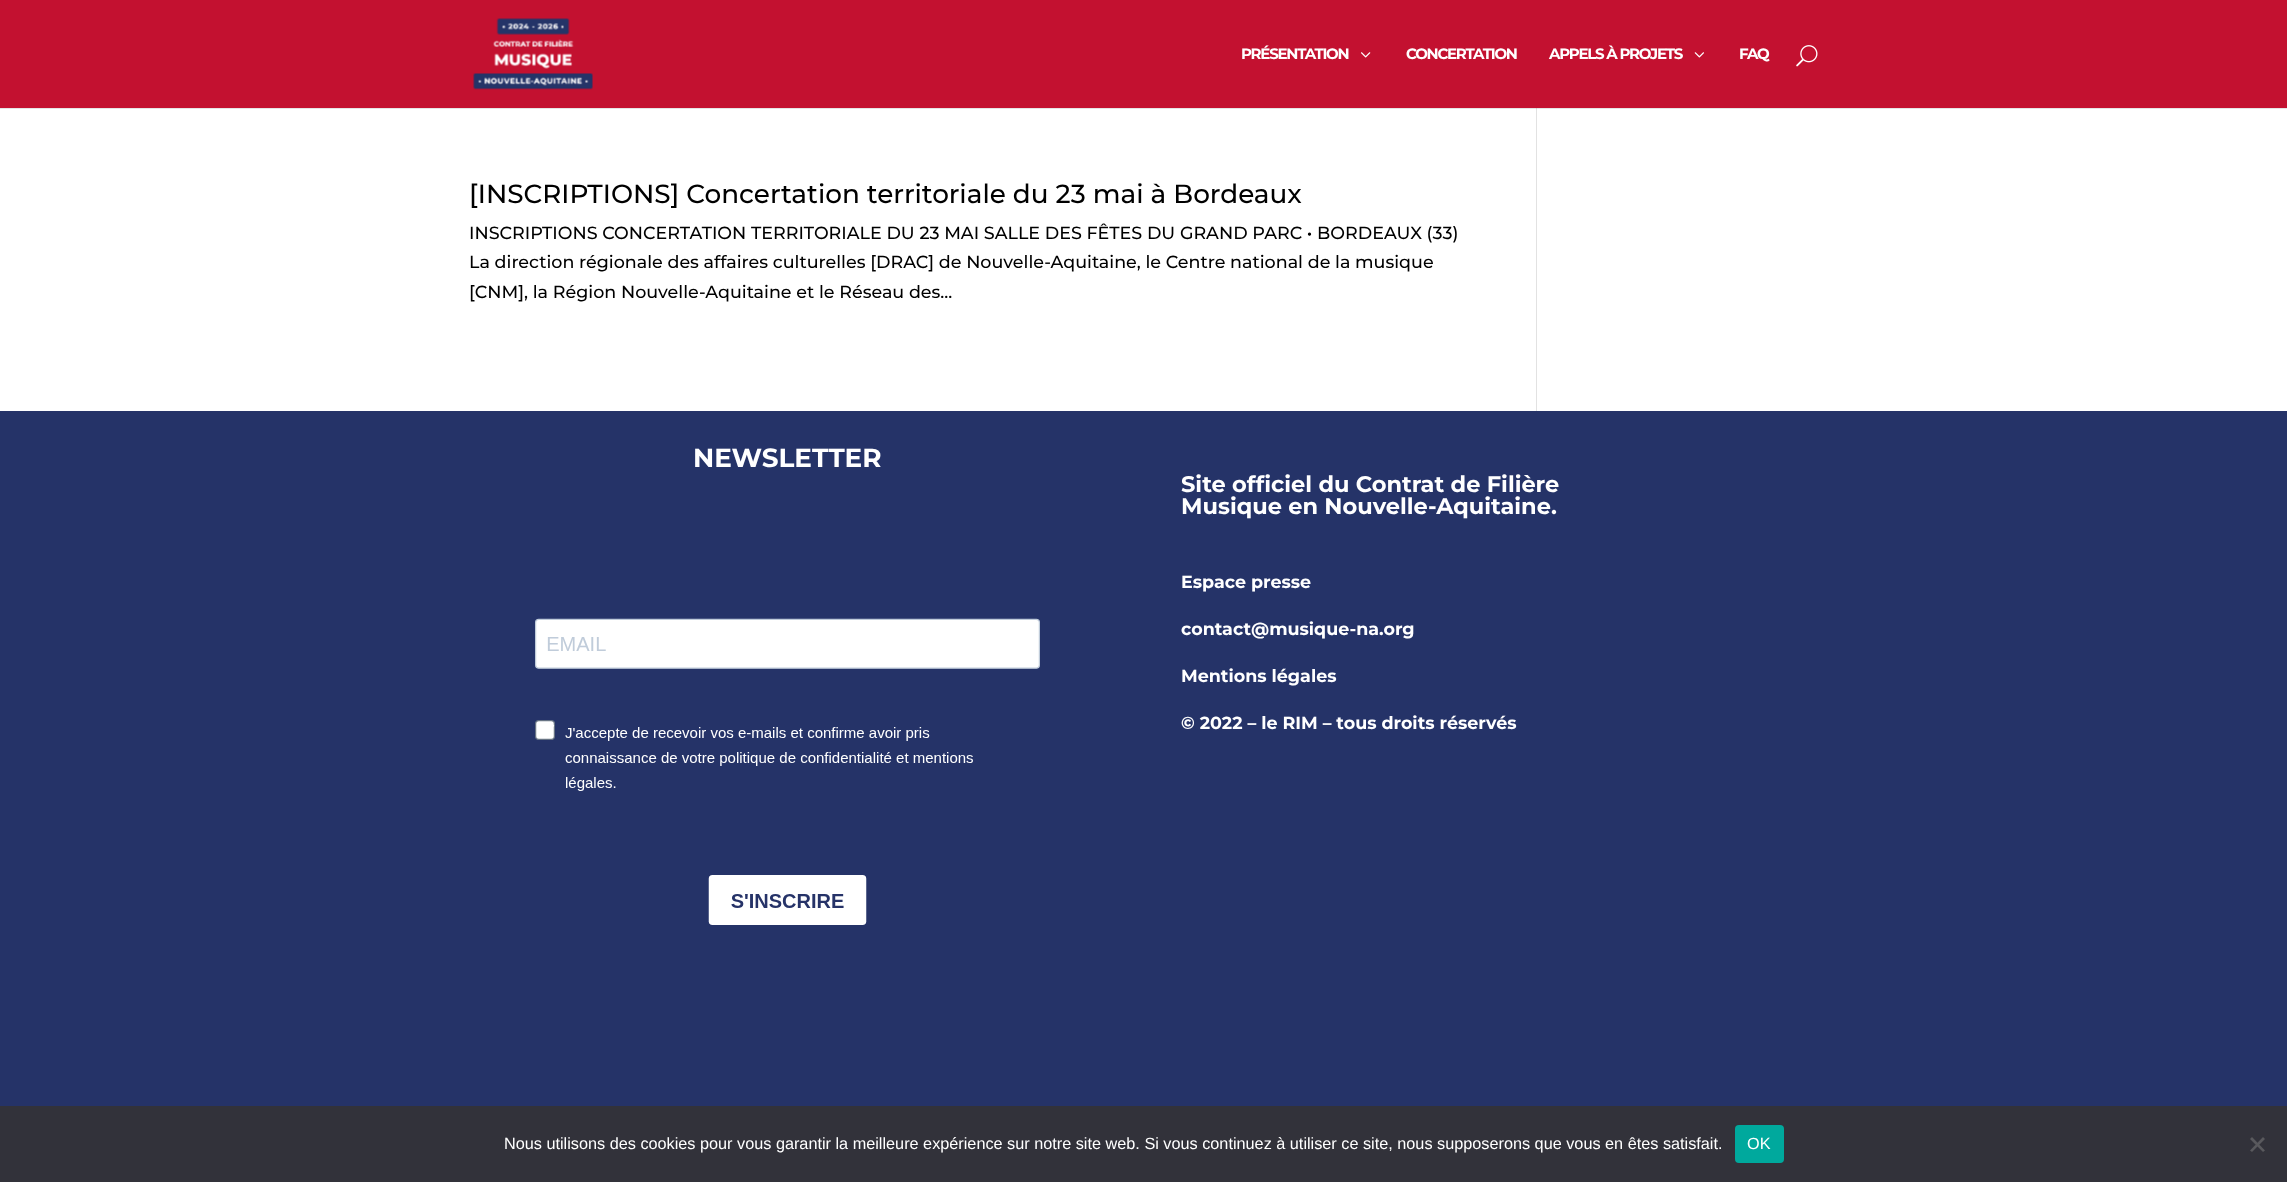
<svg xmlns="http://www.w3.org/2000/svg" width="2287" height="1182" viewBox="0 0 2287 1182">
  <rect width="100%" height="100%" fill="#c31130"/>
  <path d="M0 108h2287v303H0z" fill="#fff"/>
  <path d="M1536 108h1v303H1536z" fill="#e2e2e2"/>
  <path d="M0 108V109H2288V1V108Z" fill="#0000001a"/>
  <image x="473" y="18" width="120" height="72" href="img/1.png"/>
  <image x="1361" y="52" width="10" height="6" href="img/2.png"/>
  <image x="1694" y="52" width="10" height="6" href="img/3.png"/>
  <image x="1796" y="45" width="22" height="22" href="img/4.png"/>
  <path d="M0 411h2287v695H0z" fill="#253368"/>
  <image x="535" y="618" width="505" height="307" href="img/5.png"/>
  <path d="M0 1106h2287v76H0z" fill="#32323a"/>
  <rect x="1735" y="1125" width="49" height="38" rx="4" fill="#00a99d"/>
  <path d="M2263 1137L2265 1139L2252 1152L2250 1150.5Z" fill="#59595d"/>
  <path d="M2250 1139L2252 1137L2265 1150.5L2263 1152Z" fill="#59595d"/>
  <g font-family="Montserrat" font-size="15" font-weight="bold" letter-spacing="-1.25" fill="#fff">
    <text x="1241" y="59">PRÉSENTATION</text>
    <text x="1406" y="59">CONCERTATION</text>
    <text x="1549" y="59">APPELS À PROJETS</text>
    <text x="1739" y="59">FAQ</text>
  </g>
  <text x="469" y="203" font-family="Montserrat" font-size="26.25" font-weight="500" fill="#000">[INSCRIPTIONS] Concertation territoriale du 23 mai à Bordeaux</text>
  <g font-family="Montserrat" font-size="17.5" font-weight="500" fill="#000">
    <text x="469" y="239">INSCRIPTIONS CONCERTATION TERRITORIALE DU 23 MAI SALLE DES FÊTES DU GRAND PARC • BORDEAUX (33)</text>
    <text x="469" y="268">La direction régionale des affaires culturelles [DRAC] de Nouvelle-Aquitaine, le Centre national de la musique</text>
    <text x="469" y="298">[CNM], la Région Nouvelle-Aquitaine et le Réseau des...</text>
  </g>
  <text x="693" y="467" font-family="Montserrat" font-size="26.25" font-weight="bold" fill="#fff">NEWSLETTER</text>
  <g font-family="Montserrat" font-size="22.5" font-weight="bold" fill="#fff">
    <text x="1181" y="492">Site officiel du Contrat de Filière</text>
    <text x="1181" y="514">Musique en Nouvelle-Aquitaine.</text>
  </g>
  <g font-family="Montserrat" font-size="17.5" font-weight="bold" fill="#fff">
    <text x="1181" y="588">Espace presse</text>
    <text x="1181" y="635">contact@musique-na.org</text>
    <text x="1181" y="682">Mentions légales</text>
    <text x="1181" y="729">© 2022 – le RIM – tous droits réservés</text>
  </g>
  <g font-family="Liberation Sans" font-size="16.25" fill="#fff">
    <text x="504" y="1149">Nous utilisons des cookies pour vous garantir la meilleure expérience sur notre site web. Si vous continuez à utiliser ce site, nous supposerons que vous en êtes satisfait.</text>
    <text x="1747" y="1149">OK</text>
  </g>
</svg>
